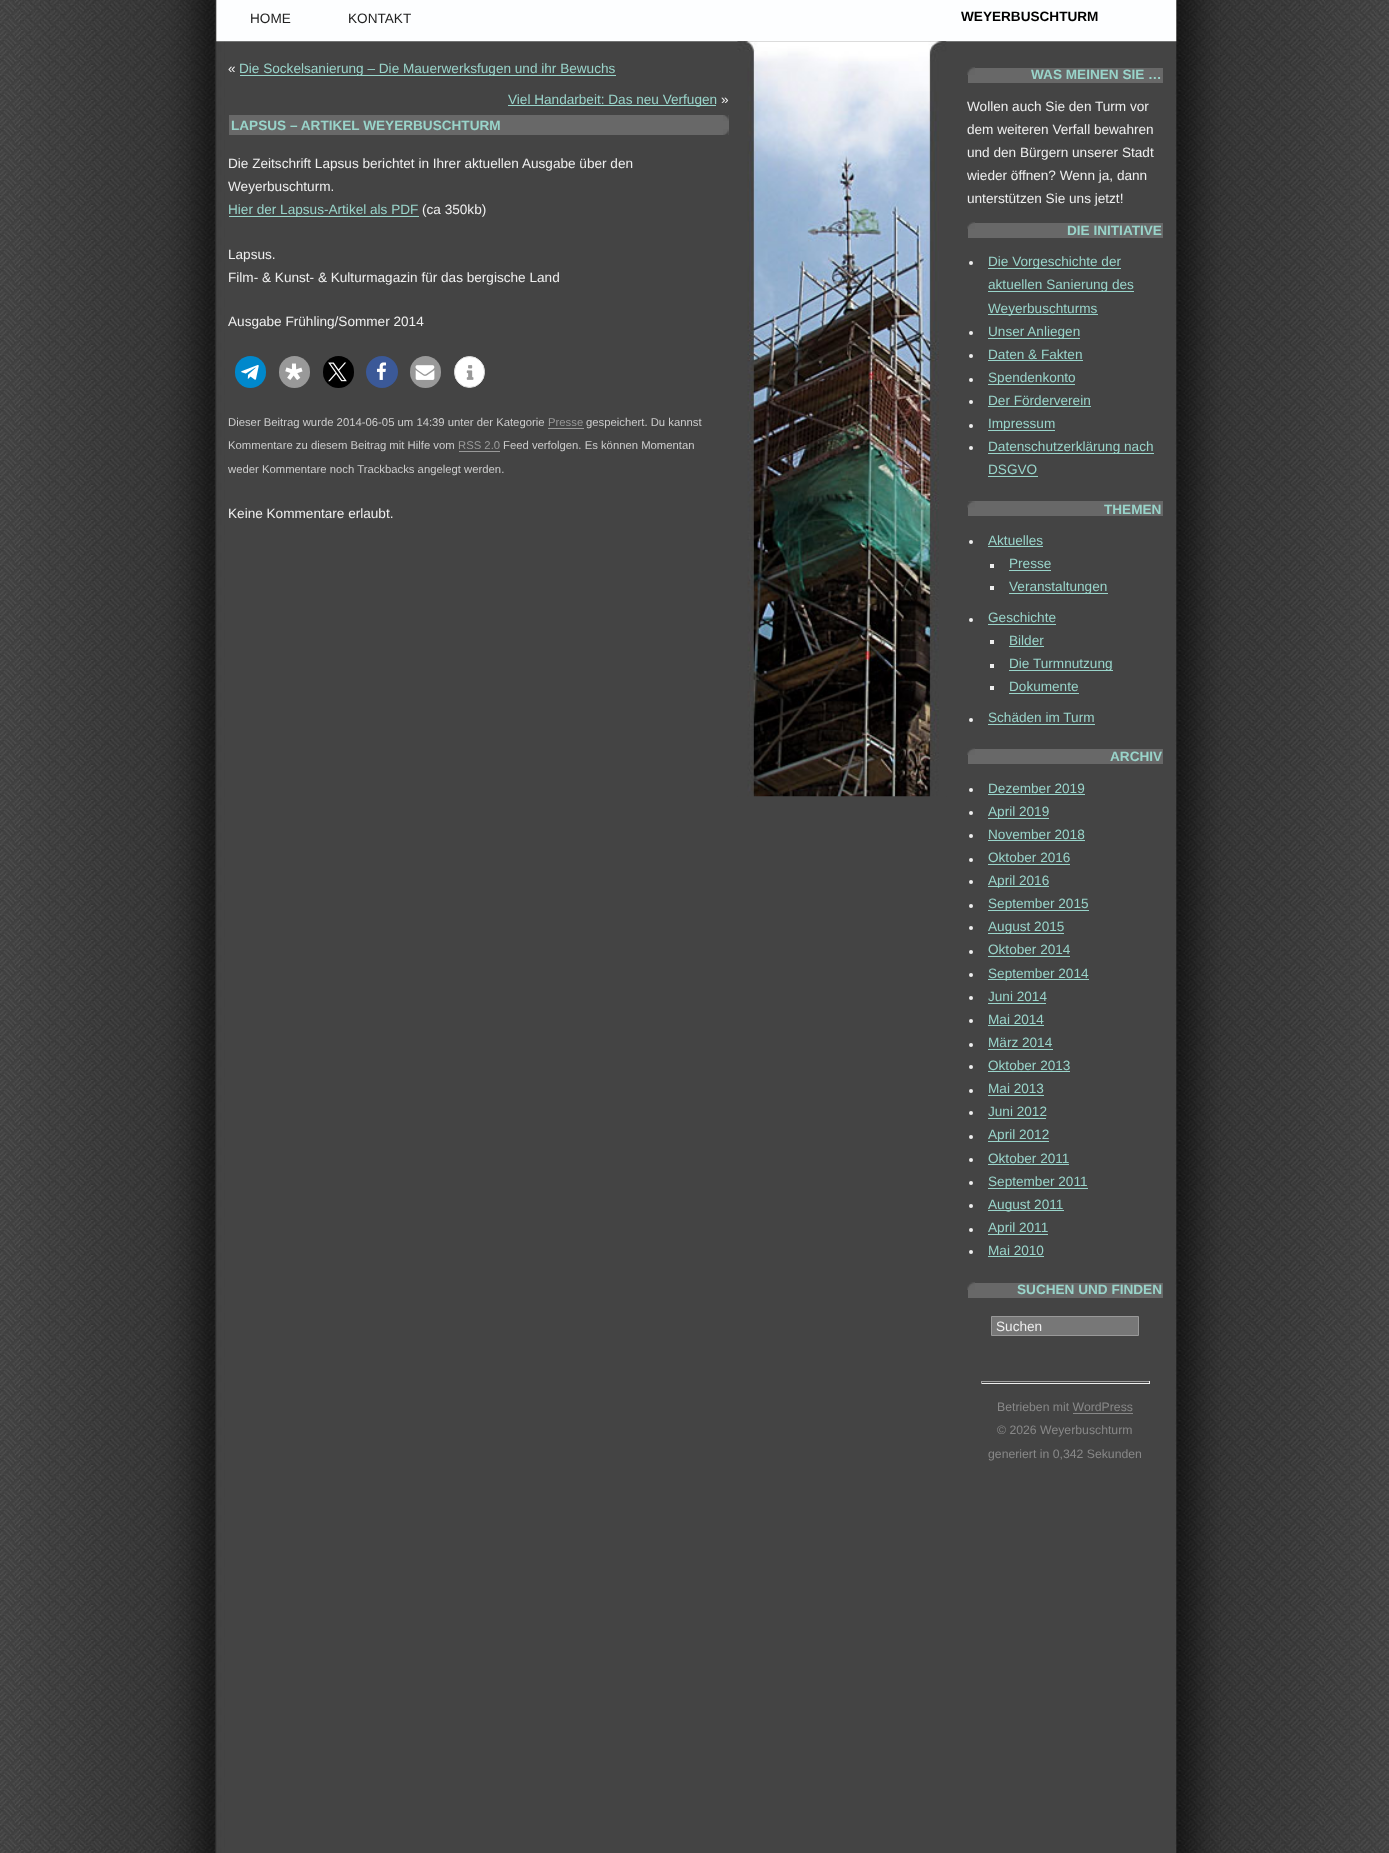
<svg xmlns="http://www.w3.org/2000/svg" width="1389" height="1853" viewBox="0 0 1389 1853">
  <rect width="100%" height="100%" fill="#fff"/>
  <image x="0" y="41" width="1389" height="1812" href="img/1.png"/>
  <image x="0" y="0" width="1389" height="42" href="img/2.png"/>
  <path d="M240 75h376v1H240z" fill="#99d4ca"/>
  <path d="M508 105h208v1H508z" fill="#99d4ca"/>
  <path d="M229 115h500v20H229z" fill="#686868"/>
  <image x="723" y="115" width="6" height="6" href="img/3.png"/>
  <image x="723" y="129" width="6" height="6" href="img/4.png"/>
  <path d="M229 216h190v1H229z" fill="#99d4ca"/>
  <rect x="235" y="356" width="31" height="32" rx="15.5" fill="#08c"/>
  <image x="241" y="365" width="18" height="15" href="img/5.png"/>
  <rect x="279" y="356" width="31" height="32" rx="15.5" fill="#999"/>
  <image x="285" y="363" width="18" height="17" href="img/6.png"/>
  <rect x="323" y="356" width="31" height="32" rx="15.5" fill="#000"/>
  <image x="328" y="362" width="19" height="20" href="img/7.png"/>
  <circle cx="382" cy="372" r="16" fill="#3b5998"/>
  <image x="376" y="362" width="10" height="18" href="img/8.png"/>
  <rect x="410" y="356" width="31" height="32" rx="15.5" fill="#999"/>
  <image x="415" y="365" width="20" height="15" href="img/9.png"/>
  <rect x="454.5" y="356.5" width="30" height="31" rx="15" fill="#fff" stroke="#ddd"/>
  <image x="466" y="365" width="8" height="15" href="img/10.png"/>
  <path d="M548 428h36v1H548z" fill="#999"/>
  <path d="M459 451h41v1H459z" fill="#999"/>
  <image x="737" y="41" width="210" height="756" href="img/11.png"/>
  <path d="M968 68h195v15H968z" fill="#686868"/>
  <image x="967" y="67" width="8" height="8" href="img/12.png"/>
  <path d="M968 223h195v15H968z" fill="#686868"/>
  <image x="967" y="222" width="8" height="7" href="img/13.png"/>
  <circle cx="971" cy="263" r="2" fill="#eee"/>
  <path d="M988 268h133v1H988z" fill="#99d4ca"/>
  <path d="M988 291h146v1H988z" fill="#99d4ca"/>
  <path d="M988 314h110v1H988z" fill="#99d4ca"/>
  <circle cx="971" cy="333" r="2" fill="#eee"/>
  <path d="M988 338h92v1H988z" fill="#99d4ca"/>
  <circle cx="971" cy="356" r="2" fill="#eee"/>
  <path d="M988 360h95v1H988z" fill="#99d4ca"/>
  <circle cx="971" cy="380" r="2" fill="#eee"/>
  <path d="M988 384h87v1H988z" fill="#99d4ca"/>
  <circle cx="971" cy="402" r="2" fill="#eee"/>
  <path d="M988 406h103v1H988z" fill="#99d4ca"/>
  <circle cx="971" cy="426" r="2" fill="#eee"/>
  <path d="M988 430h67v1H988z" fill="#99d4ca"/>
  <circle cx="971" cy="448" r="2" fill="#eee"/>
  <path d="M988 453h166v1H988z" fill="#99d4ca"/>
  <path d="M988 476h50v1H988z" fill="#99d4ca"/>
  <path d="M968 501h195v15H968z" fill="#686868"/>
  <image x="967" y="501" width="8" height="7" href="img/14.png"/>
  <circle cx="971" cy="542" r="2" fill="#eee"/>
  <path d="M988 546h55v1H988z" fill="#99d4ca"/>
  <path d="M990 564h4v4H990z" fill="#eee"/>
  <path d="M1009 570h42v1H1009z" fill="#99d4ca"/>
  <path d="M990 586h4v4H990z" fill="#eee"/>
  <path d="M1009 593h99v1H1009z" fill="#99d4ca"/>
  <circle cx="971" cy="620" r="2" fill="#eee"/>
  <path d="M988 624h68v1H988z" fill="#99d4ca"/>
  <path d="M990 640h4v4H990z" fill="#eee"/>
  <path d="M1009 646h35v1H1009z" fill="#99d4ca"/>
  <path d="M990 664h4v4H990z" fill="#eee"/>
  <path d="M1009 670h104v1H1009z" fill="#99d4ca"/>
  <path d="M990 686h4v4H990z" fill="#eee"/>
  <path d="M1009 693h70v1H1009z" fill="#99d4ca"/>
  <circle cx="971" cy="720" r="2" fill="#eee"/>
  <path d="M988 724h107v1H988z" fill="#99d4ca"/>
  <path d="M968 749h195v15H968z" fill="#686868"/>
  <image x="967" y="748" width="8" height="7" href="img/15.png"/>
  <circle cx="971" cy="790" r="2" fill="#eee"/>
  <path d="M988 794h97v1H988z" fill="#99d4ca"/>
  <circle cx="971" cy="813" r="2" fill="#eee"/>
  <path d="M988 818h61v1H988z" fill="#99d4ca"/>
  <circle cx="971" cy="836" r="2" fill="#eee"/>
  <path d="M988 840h97v1H988z" fill="#99d4ca"/>
  <circle cx="971" cy="860" r="2" fill="#eee"/>
  <path d="M988 864h82v1H988z" fill="#99d4ca"/>
  <circle cx="971" cy="882" r="2" fill="#eee"/>
  <path d="M988 886h61v1H988z" fill="#99d4ca"/>
  <circle cx="971" cy="906" r="2" fill="#eee"/>
  <path d="M988 910h101v1H988z" fill="#99d4ca"/>
  <circle cx="971" cy="928" r="2" fill="#eee"/>
  <path d="M988 933h76v1H988z" fill="#99d4ca"/>
  <circle cx="971" cy="952" r="2" fill="#eee"/>
  <path d="M988 956h82v1H988z" fill="#99d4ca"/>
  <circle cx="971" cy="975" r="2" fill="#eee"/>
  <path d="M988 979h101v1H988z" fill="#99d4ca"/>
  <circle cx="971" cy="998" r="2" fill="#eee"/>
  <path d="M988 1003h58v1H988z" fill="#99d4ca"/>
  <circle cx="971" cy="1021" r="2" fill="#eee"/>
  <path d="M988 1025h56v1H988z" fill="#99d4ca"/>
  <circle cx="971" cy="1045" r="2" fill="#eee"/>
  <path d="M988 1049h65v1H988z" fill="#99d4ca"/>
  <circle cx="971" cy="1067" r="2" fill="#eee"/>
  <path d="M988 1071h82v1H988z" fill="#99d4ca"/>
  <circle cx="971" cy="1091" r="2" fill="#eee"/>
  <path d="M988 1095h56v1H988z" fill="#99d4ca"/>
  <circle cx="971" cy="1113" r="2" fill="#eee"/>
  <path d="M988 1118h58v1H988z" fill="#99d4ca"/>
  <circle cx="971" cy="1137" r="2" fill="#eee"/>
  <path d="M988 1141h61v1H988z" fill="#99d4ca"/>
  <circle cx="971" cy="1160" r="2" fill="#eee"/>
  <path d="M988 1164h81v1H988z" fill="#99d4ca"/>
  <circle cx="971" cy="1183" r="2" fill="#eee"/>
  <path d="M988 1188h100v1H988z" fill="#99d4ca"/>
  <circle cx="971" cy="1206" r="2" fill="#eee"/>
  <path d="M988 1210h76v1H988z" fill="#99d4ca"/>
  <circle cx="971" cy="1230" r="2" fill="#eee"/>
  <path d="M988 1234h60v1H988z" fill="#99d4ca"/>
  <circle cx="971" cy="1252" r="2" fill="#eee"/>
  <path d="M988 1256h56v1H988z" fill="#99d4ca"/>
  <path d="M968 1283h195v15H968z" fill="#686868"/>
  <image x="967" y="1282" width="8" height="8" href="img/12.png"/>
  <path d="M991.5 1316.5h147v19H991.5z" fill="#777" stroke="#999"/>
  <path d="M981 1381h169v1H981z" fill="#9f9f9f"/>
  <path d="M1149 1381h1v3H1149z" fill="#eee"/>
  <path d="M981 1383h169v1H981z" fill="#eee"/>
  <path d="M981 1381h1v3H981z" fill="#9f9f9f"/>
  <path d="M1073 1413h60v1H1073z" fill="#888"/>
  <g font-family="Liberation Sans" font-size="13.6" fill="#222">
    <text x="250" y="23">HOME</text>
    <text x="348" y="23">KONTAKT</text>
  </g>
  <text x="961" y="21" font-family="Liberation Sans" font-size="13.6" font-weight="bold" fill="#000">WEYERBUSCHTURM</text>
  <text x="228" y="73" font-family="Liberation Sans" font-size="13.6" fill="#eee">«</text>
  <g font-family="Liberation Sans" font-size="13.6" fill="#99d4ca">
    <text x="239" y="73">Die Sockelsanierung – Die Mauerwerksfugen und ihr Bewuchs</text>
    <text x="508" y="104">Viel Handarbeit: Das neu Verfugen</text>
  </g>
  <text x="721" y="104" font-family="Liberation Sans" font-size="13.6" fill="#eee">»</text>
  <text x="231" y="130" font-family="Liberation Sans" font-size="13.6" font-weight="bold" fill="#99d4ca">LAPSUS – ARTIKEL WEYERBUSCHTURM</text>
  <g font-family="Liberation Sans" font-size="13.6" fill="#eee">
    <text x="228" y="168">Die Zeitschrift Lapsus berichtet in Ihrer aktuellen Ausgabe über den</text>
    <text x="228" y="191">Weyerbuschturm.</text>
  </g>
  <text x="228" y="214" font-family="Liberation Sans" font-size="13.6" fill="#99d4ca">Hier der Lapsus-Artikel als PDF</text>
  <g font-family="Liberation Sans" font-size="13.6" fill="#eee">
    <text x="422" y="214">(ca 350kb)</text>
    <text x="228" y="259">Lapsus.</text>
    <text x="228" y="282">Film- &amp; Kunst- &amp; Kulturmagazin für das bergische Land</text>
    <text x="228" y="326">Ausgabe Frühling/Sommer 2014</text>
  </g>
  <text x="228" y="426" font-family="Liberation Sans" font-size="11.3" fill="#ccc">Dieser Beitrag wurde 2014-06-05 um 14:39 unter der Kategorie</text>
  <text x="548" y="426" font-family="Liberation Sans" font-size="11.3" fill="#999">Presse</text>
  <g font-family="Liberation Sans" font-size="11.3" fill="#ccc">
    <text x="586" y="426">gespeichert. Du kannst</text>
    <text x="228" y="449">Kommentare zu diesem Beitrag mit Hilfe vom</text>
  </g>
  <text x="458" y="449" font-family="Liberation Sans" font-size="11.3" fill="#999">RSS 2.0</text>
  <g font-family="Liberation Sans" font-size="11.3" fill="#ccc">
    <text x="503" y="449">Feed verfolgen. Es können Momentan</text>
    <text x="228" y="473">weder Kommentare noch Trackbacks angelegt werden.</text>
  </g>
  <text x="228" y="518" font-family="Liberation Sans" font-size="13.6" fill="#eee">Keine Kommentare erlaubt.</text>
  <text x="1031" y="79" font-family="Liberation Sans" font-size="13.6" font-weight="bold" fill="#99d4ca">WAS MEINEN SIE …</text>
  <g font-family="Liberation Sans" font-size="13.6" fill="#eee">
    <text x="967" y="111">Wollen auch Sie den Turm vor</text>
    <text x="967" y="134">dem weiteren Verfall bewahren</text>
    <text x="967" y="157">und den Bürgern unserer Stadt</text>
    <text x="967" y="180">wieder öffnen? Wenn ja, dann</text>
    <text x="967" y="203">unterstützen Sie uns jetzt!</text>
  </g>
  <text x="1067" y="235" font-family="Liberation Sans" font-size="13.6" font-weight="bold" fill="#99d4ca">DIE INITIATIVE</text>
  <g font-family="Liberation Sans" font-size="13.6" fill="#99d4ca">
    <text x="988" y="266">Die Vorgeschichte der</text>
    <text x="988" y="289">aktuellen Sanierung des</text>
    <text x="988" y="313">Weyerbuschturms</text>
    <text x="988" y="336">Unser Anliegen</text>
    <text x="988" y="359">Daten &amp; Fakten</text>
    <text x="988" y="382">Spendenkonto</text>
    <text x="988" y="405">Der Förderverein</text>
    <text x="988" y="428">Impressum</text>
    <text x="988" y="451">Datenschutzerklärung nach</text>
    <text x="988" y="474">DSGVO</text>
  </g>
  <text x="1104" y="514" font-family="Liberation Sans" font-size="13.6" font-weight="bold" fill="#99d4ca">THEMEN</text>
  <g font-family="Liberation Sans" font-size="13.6" fill="#99d4ca">
    <text x="988" y="545">Aktuelles</text>
    <text x="1009" y="568">Presse</text>
    <text x="1009" y="591">Veranstaltungen</text>
    <text x="988" y="622">Geschichte</text>
    <text x="1009" y="645">Bilder</text>
    <text x="1009" y="668">Die Turmnutzung</text>
    <text x="1009" y="691">Dokumente</text>
    <text x="988" y="722">Schäden im Turm</text>
  </g>
  <text x="1110" y="761" font-family="Liberation Sans" font-size="13.6" font-weight="bold" fill="#99d4ca">ARCHIV</text>
  <g font-family="Liberation Sans" font-size="13.6" fill="#99d4ca">
    <text x="988" y="793">Dezember 2019</text>
    <text x="988" y="816">April 2019</text>
    <text x="988" y="839">November 2018</text>
    <text x="988" y="862">Oktober 2016</text>
    <text x="988" y="885">April 2016</text>
    <text x="988" y="908">September 2015</text>
    <text x="988" y="931">August 2015</text>
    <text x="988" y="954">Oktober 2014</text>
    <text x="988" y="978">September 2014</text>
    <text x="988" y="1001">Juni 2014</text>
    <text x="988" y="1024">Mai 2014</text>
    <text x="988" y="1047">März 2014</text>
    <text x="988" y="1070">Oktober 2013</text>
    <text x="988" y="1093">Mai 2013</text>
    <text x="988" y="1116">Juni 2012</text>
    <text x="988" y="1139">April 2012</text>
    <text x="988" y="1163">Oktober 2011</text>
    <text x="988" y="1186">September 2011</text>
    <text x="988" y="1209">August 2011</text>
    <text x="988" y="1232">April 2011</text>
    <text x="988" y="1255">Mai 2010</text>
  </g>
  <text x="1017" y="1294" font-family="Liberation Sans" font-size="13.6" font-weight="bold" fill="#99d4ca">SUCHEN UND FINDEN</text>
  <text x="996" y="1331" font-family="Liberation Sans" font-size="13.6" fill="#eee">Suchen</text>
  <g font-family="Liberation Sans" font-size="12.25" fill="#888">
    <text x="997" y="1411">Betrieben mit WordPress</text>
    <text x="997" y="1434">© 2026 Weyerbuschturm</text>
    <text x="988" y="1458">generiert in 0,342 Sekunden</text>
  </g>
</svg>
